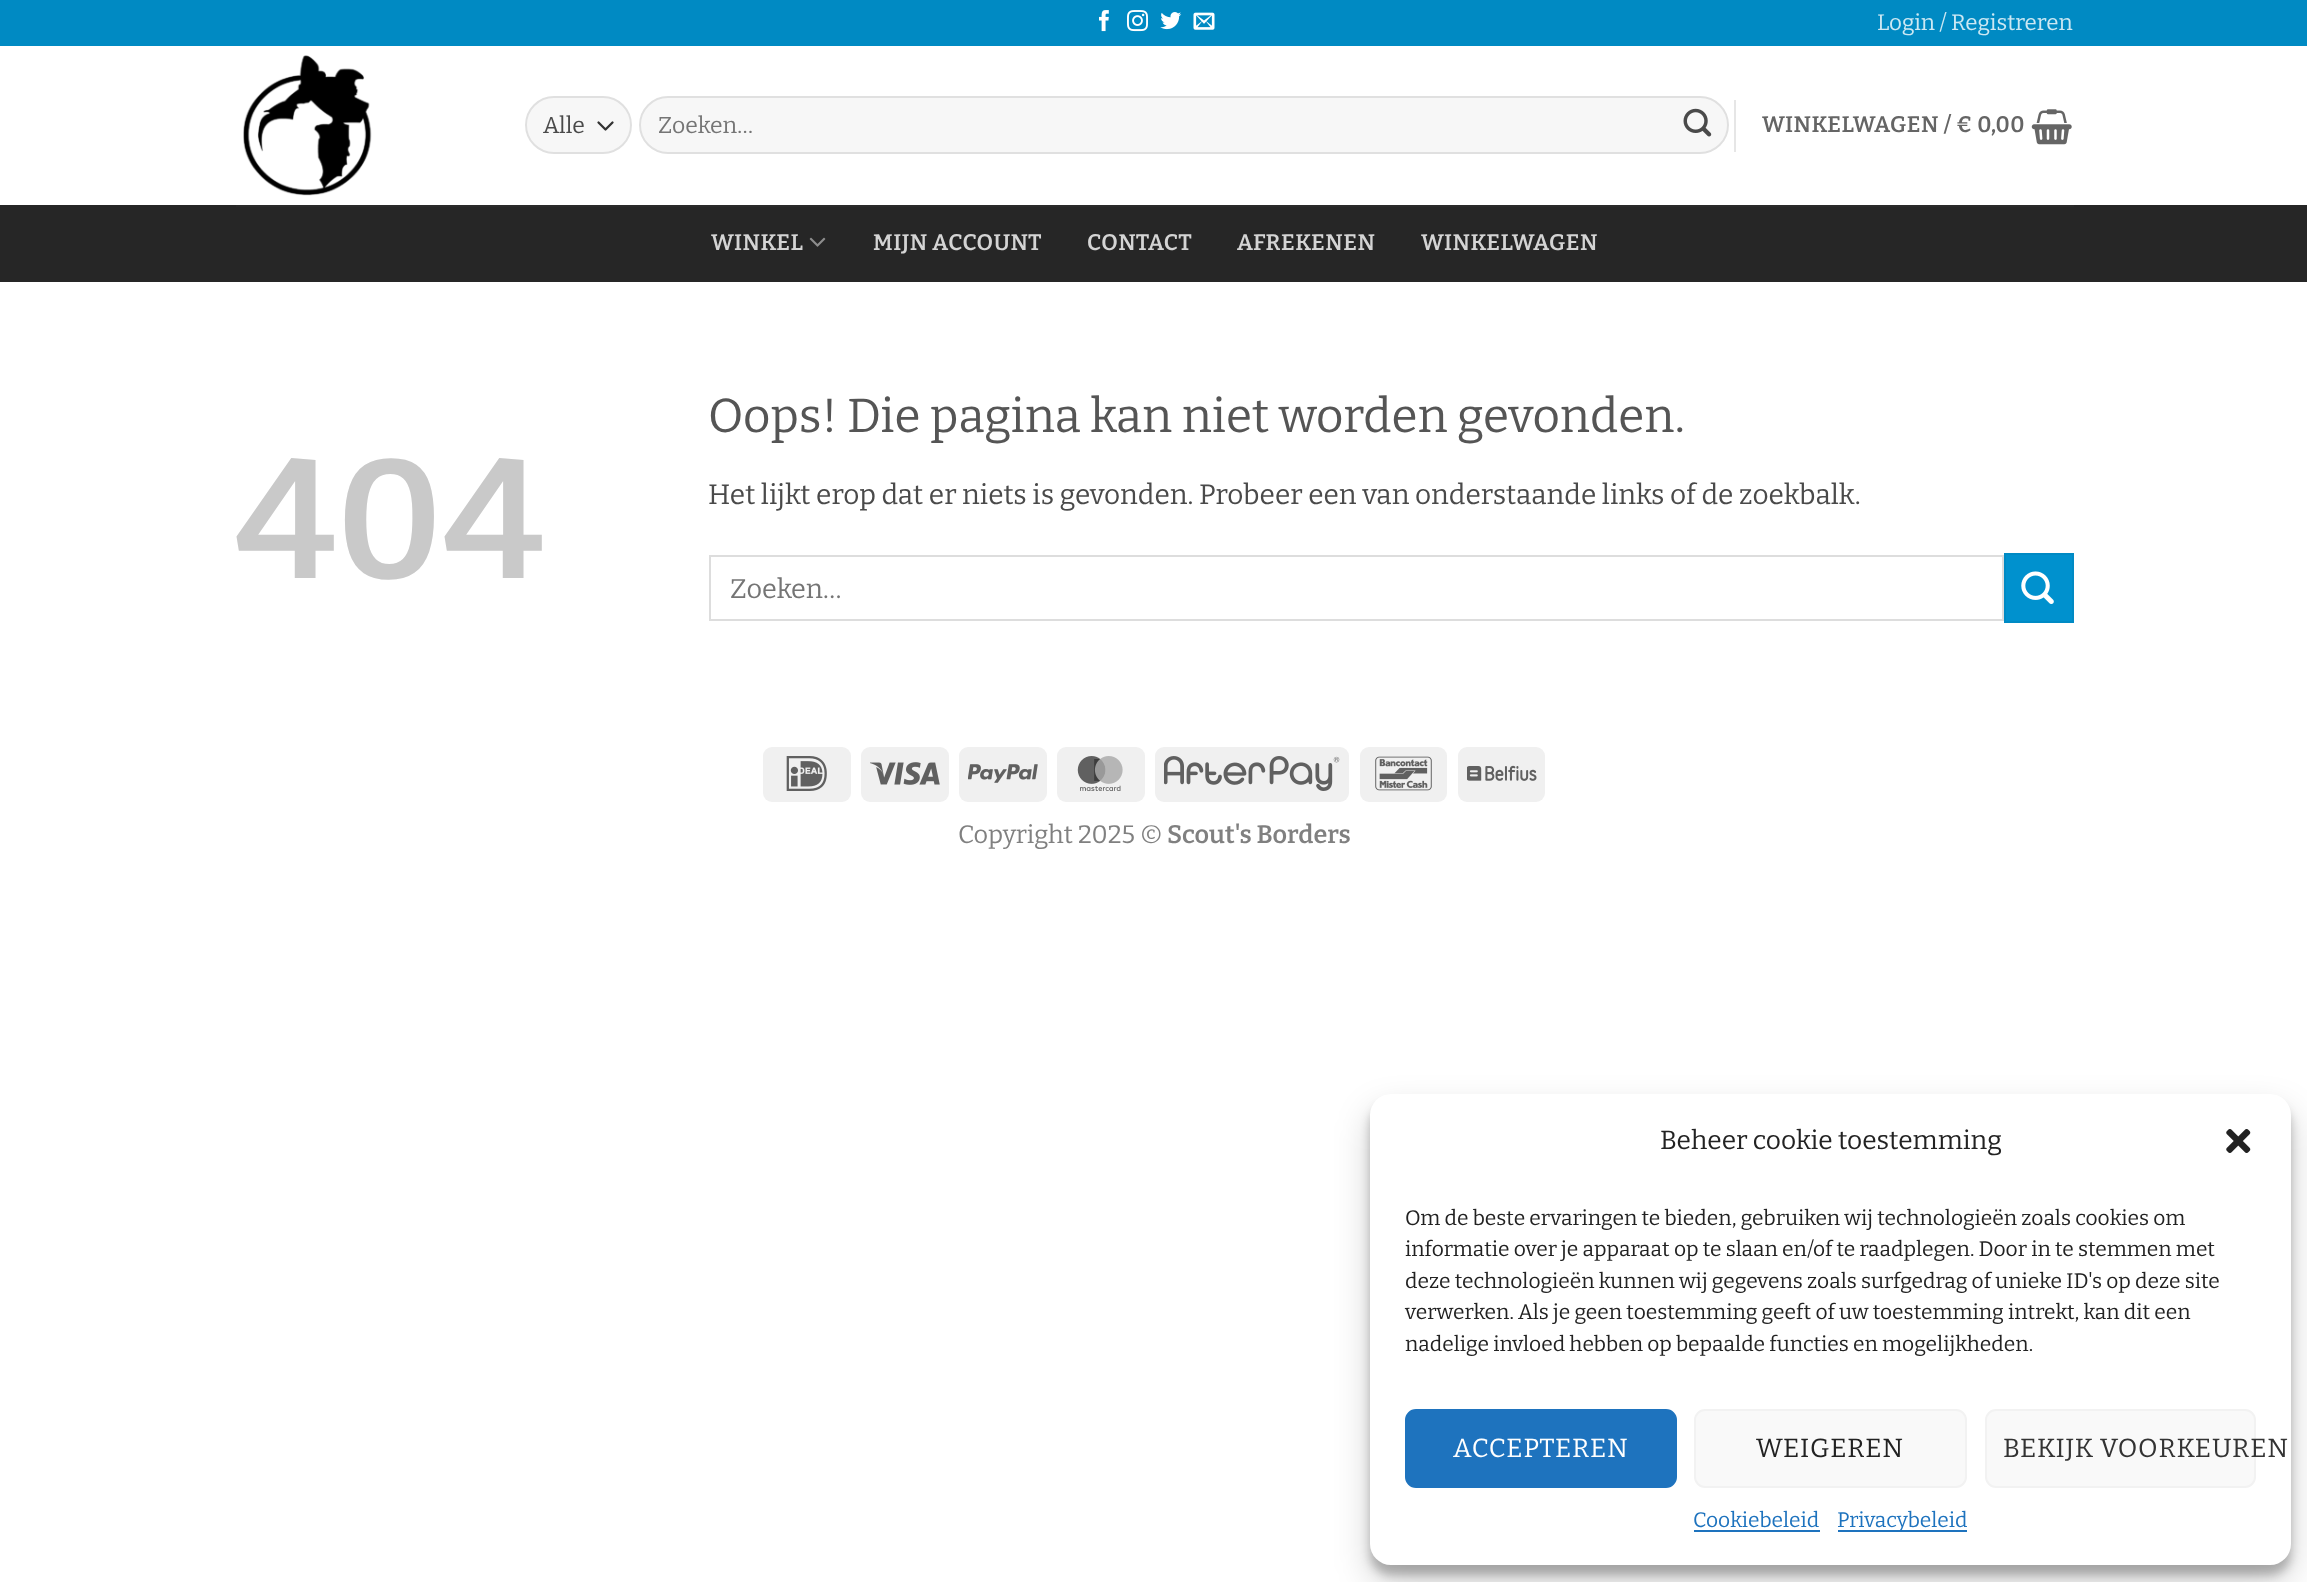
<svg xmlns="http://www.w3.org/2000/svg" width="2307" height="1582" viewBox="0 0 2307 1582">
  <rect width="100%" height="100%" fill="#fff"/>
  <path d="M0 0h2307v46H0z" fill="#008ac3"/>
  <image x="1099" y="10" width="10" height="22" href="img/1.png"/>
  <image x="1127" y="10" width="21" height="22" href="img/2.png"/>
  <image x="1160" y="12" width="22" height="18" href="img/3.png"/>
  <image x="1193" y="12" width="22" height="18" href="img/4.png"/>
  <image x="243" y="55" width="129" height="141" href="img/5.png"/>
  <rect x="525" y="96" width="107" height="58" rx="29" fill="#f7f7f7"/>
  <path d="M598.5 122.5L605.5 129.5L612.5 122.5" fill="none" stroke="#333" stroke-width="2.3" stroke-linecap="round" stroke-linejoin="round"/>
  <rect x="526" y="97" width="105" height="56" rx="28" fill="none" stroke="#00000017" stroke-width="2"/>
  <rect x="639" y="96" width="1090" height="58" rx="29" fill="#f7f7f7"/>
  <rect x="640" y="97" width="1088" height="56" rx="28" fill="none" stroke="#00000017" stroke-width="2"/>
  <image x="1683" y="108" width="29" height="29" href="img/6.png"/>
  <path d="M1734 100h2v52H1734z" fill="#e6e6e6"/>
  <image x="2031" y="109" width="41" height="36" href="img/7.png"/>
  <path d="M0 205h2307v77H0z" fill="#262626"/>
  <path d="M236 205h1838v2H236z" fill="#2a2a2a"/>
  <image x="809" y="237" width="17" height="10" href="img/8.png"/>
  <path d="M710 556h1293v64H710z" fill="none" stroke="#ddd" stroke-width="2"/>
  <path d="M2005 554h68v68H2005z" fill="#0091ce" stroke="#008ac4" stroke-width="2"/>
  <image x="2021" y="571" width="33" height="33" href="img/9.png"/>
  <rect x="763" y="747" width="88" height="55" rx="9" fill="#f0f0f0"/>
  <image x="786" y="756" width="41" height="35" href="img/10.png"/>
  <rect x="861" y="747" width="88" height="55" rx="9" fill="#f0f0f0"/>
  <image x="870" y="762" width="70" height="23" href="img/11.png"/>
  <rect x="959" y="747" width="88" height="55" rx="9" fill="#f0f0f0"/>
  <image x="968" y="764" width="70" height="19" href="img/12.png"/>
  <rect x="1057" y="747" width="88" height="55" rx="9" fill="#f0f0f0"/>
  <image x="1077" y="756" width="46" height="35" href="img/13.png"/>
  <rect x="1155" y="747" width="194" height="55" rx="9" fill="#f0f0f0"/>
  <image x="1164" y="756" width="176" height="35" href="img/14.png"/>
  <rect x="1360" y="747" width="87" height="55" rx="9" fill="#f0f0f0"/>
  <image x="1375" y="756" width="57" height="35" href="img/15.png"/>
  <rect x="1458" y="747" width="87" height="55" rx="9" fill="#f0f0f0"/>
  <image x="1467" y="765" width="70" height="16" href="img/16.png"/>
  <rect x="1370" y="1104" width="921" height="471" rx="21" fill="#0000003b" filter="blur(5px)"/>
  <rect x="1370" y="1111" width="921" height="471" rx="21" fill="#00000030" filter="blur(17.5px)"/>
  <rect x="1370" y="1094" width="921" height="471" rx="21" fill="#fff"/>
  <image x="2226" y="1129" width="25" height="24" href="img/17.png"/>
  <rect x="1406" y="1410" width="270" height="77" rx="10" fill="#1e73be" stroke="#1e73be" stroke-width="2"/>
  <rect x="1695" y="1410" width="271" height="77" rx="10" fill="#f9f9f9" stroke="#f2f2f2" stroke-width="2"/>
  <rect x="1986" y="1410" width="269" height="77" rx="10" fill="#f9f9f9" stroke="#f2f2f2" stroke-width="2"/>
  <path d="M1694 1530h126v2H1694z" fill="#1e73be"/>
  <path d="M1838 1530h129v2H1838z" fill="#1e73be"/>
  <text x="1877" y="30" font-family="Bitter" font-size="22.4" fill="#cce8f3">Login / Registreren</text>
  <text x="543" y="133" font-family="Bitter" font-size="23" fill="#4a4a4a">Alle</text>
  <text x="658" y="133" font-family="Bitter" font-size="23" fill="#757575">Zoeken…</text>
  <text x="1762" y="132" font-family="Bitter" font-size="22.4" font-weight="600" letter-spacing="0.5" fill="#656565">WINKELWAGEN / € 0,00</text>
  <g font-family="Bitter" font-size="22.4" font-weight="600" letter-spacing="0.5" fill="#d4d4d4">
    <text x="711" y="250">WINKEL</text>
    <text x="873" y="250">MIJN ACCOUNT</text>
    <text x="1087" y="250">CONTACT</text>
    <text x="1237" y="250">AFREKENEN</text>
    <text x="1421" y="250">WINKELWAGEN</text>
  </g>
  <text x="235" y="578" font-family="Bitter" font-size="168" font-weight="600" fill="#c9c9c9">404</text>
  <text x="708" y="432" font-family="Bitter" font-size="47.6" fill="#555">Oops! Die pagina kan niet worden gevonden.</text>
  <text x="708" y="504" font-family="Bitter" font-size="28" fill="#4a4a4a">Het lijkt erop dat er niets is gevonden. Probeer een van onderstaande links of de zoekbalk.</text>
  <text x="730" y="598" font-family="Bitter" font-size="27" fill="#757575">Zoeken…</text>
  <text x="958" y="843" font-family="Bitter" font-size="25.25" fill="#808080">Copyright 2025 ©</text>
  <text x="1167" y="843" font-family="Bitter" font-size="25.25" font-weight="600" fill="#808080">Scout's Borders</text>
  <text x="1660" y="1149" font-family="Bitter" font-size="26.25" fill="#222">Beheer cookie toestemming</text>
  <g font-family="Bitter" font-size="21" fill="#222">
    <text x="1405" y="1225">Om de beste ervaringen te bieden, gebruiken wij technologieën zoals cookies om</text>
    <text x="1405" y="1256">informatie over je apparaat op te slaan en/of te raadplegen. Door in te stemmen met</text>
    <text x="1405" y="1288">deze technologieën kunnen wij gegevens zoals surfgedrag of unieke ID's op deze site</text>
    <text x="1405" y="1319">verwerken. Als je geen toestemming geeft of uw toestemming intrekt, kan dit een</text>
    <text x="1405" y="1351">nadelige invloed hebben op bepaalde functies en mogelijkheden.</text>
  </g>
  <text x="1453" y="1457" font-family="Bitter" font-size="26.25" letter-spacing="0.75" fill="#fff">ACCEPTEREN</text>
  <text x="1756" y="1457" font-family="Bitter" font-size="26.25" letter-spacing="0.75" fill="#222">WEIGEREN</text>
  <text x="2003" y="1457" font-family="Bitter" font-size="26.25" letter-spacing="0.75" fill="#333">BEKIJK VOORKEUREN</text>
  <g font-family="Bitter" font-size="21" fill="#1e73be">
    <text x="1693" y="1527">Cookiebeleid</text>
    <text x="1837" y="1527">Privacybeleid</text>
  </g>
</svg>
